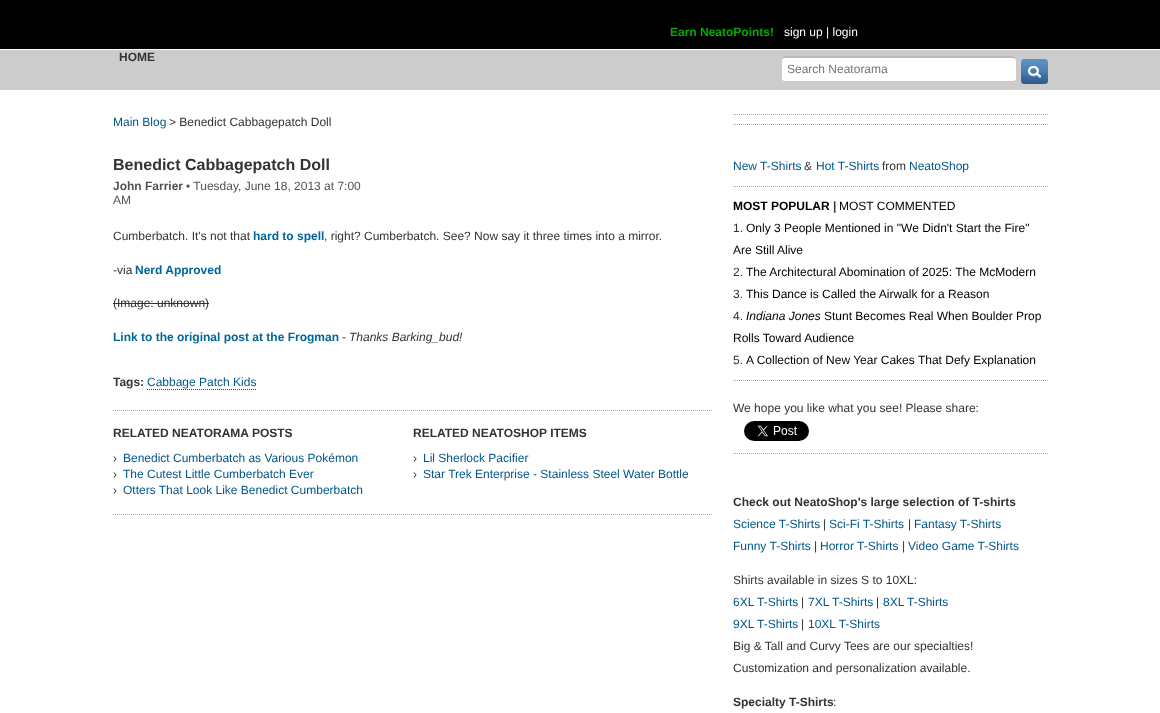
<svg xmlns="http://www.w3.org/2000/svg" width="1160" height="713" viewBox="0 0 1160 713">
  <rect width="100%" height="100%" fill="#fff"/>
  <path d="M0 0h1160v49H0z" fill="#000"/>
  <path d="M0 50h1160v40H0z" fill="#ccc"/>
  <rect x="782" y="56" width="234" height="25" rx="3" fill="#fff"/>
  <path d="M785 58H1013C1015 58 1016 59 1016 61V59C1016 57 1015 56 1013 56H785C783 56 782 57 782 59V61C782 59 783 58 785 58Z" fill="#bbb"/>
  <image x="1021" y="59" width="27" height="25" href="img/1.png"/>
  <path d="M113 303h96v1H113z" fill="#333"/>
  <path d="M147 389.5H256" fill="none" stroke="#005689" stroke-dasharray="1 1"/>
  <path d="M113 410.5H713" fill="none" stroke="#aaa" stroke-dasharray="1 1"/>
  <path d="M113 514.5H713" fill="none" stroke="#aaa" stroke-dasharray="1 1"/>
  <path d="M733 114.5H1048" fill="none" stroke="#aaa" stroke-dasharray="1 1"/>
  <path d="M733 124.5H1048" fill="none" stroke="#aaa" stroke-dasharray="1 1"/>
  <path d="M733 186.5H1048" fill="none" stroke="#aaa" stroke-dasharray="1 1"/>
  <path d="M733 380.5H1048" fill="none" stroke="#aaa" stroke-dasharray="1 1"/>
  <image x="744" y="421" width="65" height="20" href="img/2.png"/>
  <path d="M733 453.5H1048" fill="none" stroke="#aaa" stroke-dasharray="1 1"/>
  <text x="670" y="36" font-family="Liberation Sans" font-size="12" font-weight="bold" fill="#0a0">Earn NeatoPoints!</text>
  <text x="784" y="36" font-family="Liberation Sans" font-size="12" fill="#fff">sign up | login</text>
  <text x="119" y="61" font-family="Liberation Sans" font-size="12" font-weight="bold" fill="#333">HOME</text>
  <text x="787" y="73" font-family="Liberation Sans" font-size="12" fill="#757575">Search Neatorama</text>
  <text x="113" y="126" font-family="Liberation Sans" font-size="12" fill="#005689">Main Blog</text>
  <text x="169" y="126" font-family="Liberation Sans" font-size="12" fill="#333">&gt; Benedict Cabbagepatch Doll</text>
  <text x="113" y="170" font-family="Liberation Sans" font-size="16" font-weight="bold" fill="#333">Benedict Cabbagepatch Doll</text>
  <text x="113" y="190" font-family="Liberation Sans" font-size="12" font-weight="bold" fill="#525252">John Farrier</text>
  <g font-family="Liberation Sans" font-size="12" fill="#525252">
    <text x="186" y="190">• Tuesday, June 18, 2013 at 7:00</text>
    <text x="113" y="204">AM</text>
  </g>
  <text x="113" y="240" font-family="Liberation Sans" font-size="12" fill="#333">Cumberbatch. It's not that</text>
  <text x="253" y="240" font-family="Liberation Sans" font-size="12" font-weight="bold" fill="#069">hard to spell</text>
  <g font-family="Liberation Sans" font-size="12" fill="#333">
    <text x="324" y="240">, right? Cumberbatch. See? Now say it three times into a mirror.</text>
    <text x="113" y="274">-via</text>
  </g>
  <text x="135" y="274" font-family="Liberation Sans" font-size="12" font-weight="bold" fill="#069">Nerd Approved</text>
  <text x="113" y="307" font-family="Liberation Sans" font-size="12" fill="#333">(Image: unknown)</text>
  <text x="113" y="341" font-family="Liberation Sans" font-size="12" font-weight="bold" fill="#069">Link to the original post at the Frogman</text>
  <text x="342" y="341" font-family="Liberation Sans" font-size="12" fill="#333">-</text>
  <text x="349" y="341" font-family="Liberation Sans" font-size="12" font-style="italic" fill="#333">Thanks Barking_bud!</text>
  <text x="113" y="386" font-family="Liberation Sans" font-size="12" font-weight="bold" fill="#333">Tags:</text>
  <text x="147" y="386" font-family="Liberation Sans" font-size="12" fill="#005689">Cabbage Patch Kids</text>
  <text x="113" y="437" font-family="Liberation Sans" font-size="12" font-weight="bold" fill="#333">RELATED NEATORAMA POSTS</text>
  <text x="113" y="462" font-family="Liberation Sans" font-size="12" fill="#333">›</text>
  <text x="123" y="462" font-family="Liberation Sans" font-size="12" fill="#005689">Benedict Cumberbatch as Various Pokémon</text>
  <text x="113" y="478" font-family="Liberation Sans" font-size="12" fill="#333">›</text>
  <text x="123" y="478" font-family="Liberation Sans" font-size="12" fill="#005689">The Cutest Little Cumberbatch Ever</text>
  <text x="113" y="494" font-family="Liberation Sans" font-size="12" fill="#333">›</text>
  <text x="123" y="494" font-family="Liberation Sans" font-size="12" fill="#005689">Otters That Look Like Benedict Cumberbatch</text>
  <text x="413" y="437" font-family="Liberation Sans" font-size="12" font-weight="bold" fill="#333">RELATED NEATOSHOP ITEMS</text>
  <text x="413" y="462" font-family="Liberation Sans" font-size="12" fill="#333">›</text>
  <text x="423" y="462" font-family="Liberation Sans" font-size="12" fill="#005689">Lil Sherlock Pacifier</text>
  <text x="413" y="478" font-family="Liberation Sans" font-size="12" fill="#333">›</text>
  <g font-family="Liberation Sans" font-size="12" fill="#005689">
    <text x="423" y="478">Star Trek Enterprise - Stainless Steel Water Bottle</text>
    <text x="733" y="170">New T-Shirts</text>
  </g>
  <text x="804" y="170" font-family="Liberation Sans" font-size="12" fill="#333">&amp;</text>
  <text x="816" y="170" font-family="Liberation Sans" font-size="12" fill="#005689">Hot T-Shirts</text>
  <text x="882" y="170" font-family="Liberation Sans" font-size="12" fill="#333">from</text>
  <text x="909" y="170" font-family="Liberation Sans" font-size="12" fill="#005689">NeatoShop</text>
  <text x="733" y="210" font-family="Liberation Sans" font-size="12" font-weight="bold" fill="#000">MOST POPULAR</text>
  <text x="833" y="210" font-family="Liberation Sans" font-size="12" font-weight="bold" fill="#333">|</text>
  <text x="839" y="210" font-family="Liberation Sans" font-size="12" fill="#000">MOST COMMENTED</text>
  <text x="733" y="232" font-family="Liberation Sans" font-size="12" fill="#333">1.</text>
  <g font-family="Liberation Sans" font-size="12" fill="#000">
    <text x="746" y="232">Only 3 People Mentioned in "We Didn't Start the Fire"</text>
    <text x="733" y="254">Are Still Alive</text>
  </g>
  <text x="733" y="276" font-family="Liberation Sans" font-size="12" fill="#333">2.</text>
  <text x="746" y="276" font-family="Liberation Sans" font-size="12" fill="#000">The Architectural Abomination of 2025: The McModern</text>
  <text x="733" y="298" font-family="Liberation Sans" font-size="12" fill="#333">3.</text>
  <text x="746" y="298" font-family="Liberation Sans" font-size="12" fill="#000">This Dance is Called the Airwalk for a Reason</text>
  <text x="733" y="320" font-family="Liberation Sans" font-size="12" fill="#333">4.</text>
  <text x="746" y="320" font-family="Liberation Sans" font-size="12" font-style="italic" fill="#000">Indiana Jones</text>
  <g font-family="Liberation Sans" font-size="12" fill="#000">
    <text x="824" y="320">Stunt Becomes Real When Boulder Prop</text>
    <text x="733" y="342">Rolls Toward Audience</text>
  </g>
  <text x="733" y="364" font-family="Liberation Sans" font-size="12" fill="#333">5.</text>
  <text x="746" y="364" font-family="Liberation Sans" font-size="12" fill="#000">A Collection of New Year Cakes That Defy Explanation</text>
  <text x="733" y="412" font-family="Liberation Sans" font-size="12" fill="#333">We hope you like what you see! Please share:</text>
  <text x="733" y="506" font-family="Liberation Sans" font-size="12" font-weight="bold" fill="#333">Check out NeatoShop's large selection of T-shirts</text>
  <text x="733" y="528" font-family="Liberation Sans" font-size="12" fill="#005689">Science T-Shirts</text>
  <text x="823" y="528" font-family="Liberation Sans" font-size="12" fill="#333">|</text>
  <text x="829" y="528" font-family="Liberation Sans" font-size="12" fill="#005689">Sci-Fi T-Shirts</text>
  <text x="908" y="528" font-family="Liberation Sans" font-size="12" fill="#333">|</text>
  <g font-family="Liberation Sans" font-size="12" fill="#005689">
    <text x="914" y="528">Fantasy T-Shirts</text>
    <text x="733" y="550">Funny T-Shirts</text>
  </g>
  <text x="814" y="550" font-family="Liberation Sans" font-size="12" fill="#333">|</text>
  <text x="820" y="550" font-family="Liberation Sans" font-size="12" fill="#005689">Horror T-Shirts</text>
  <text x="902" y="550" font-family="Liberation Sans" font-size="12" fill="#333">|</text>
  <text x="908" y="550" font-family="Liberation Sans" font-size="12" fill="#005689">Video Game T-Shirts</text>
  <text x="733" y="584" font-family="Liberation Sans" font-size="12" fill="#333">Shirts available in sizes S to 10XL:</text>
  <text x="733" y="606" font-family="Liberation Sans" font-size="12" fill="#005689">6XL T-Shirts</text>
  <text x="801" y="606" font-family="Liberation Sans" font-size="12" fill="#333">|</text>
  <text x="808" y="606" font-family="Liberation Sans" font-size="12" fill="#005689">7XL T-Shirts</text>
  <text x="876" y="606" font-family="Liberation Sans" font-size="12" fill="#333">|</text>
  <g font-family="Liberation Sans" font-size="12" fill="#005689">
    <text x="883" y="606">8XL T-Shirts</text>
    <text x="733" y="628">9XL T-Shirts</text>
  </g>
  <text x="801" y="628" font-family="Liberation Sans" font-size="12" fill="#333">|</text>
  <text x="808" y="628" font-family="Liberation Sans" font-size="12" fill="#005689">10XL T-Shirts</text>
  <g font-family="Liberation Sans" font-size="12" fill="#333">
    <text x="733" y="650">Big &amp; Tall and Curvy Tees are our specialties!</text>
    <text x="733" y="672">Customization and personalization available.</text>
  </g>
  <text x="733" y="706" font-family="Liberation Sans" font-size="12" font-weight="bold" fill="#333">Specialty T-Shirts</text>
  <text x="833" y="706" font-family="Liberation Sans" font-size="12" fill="#333">:</text>
</svg>
